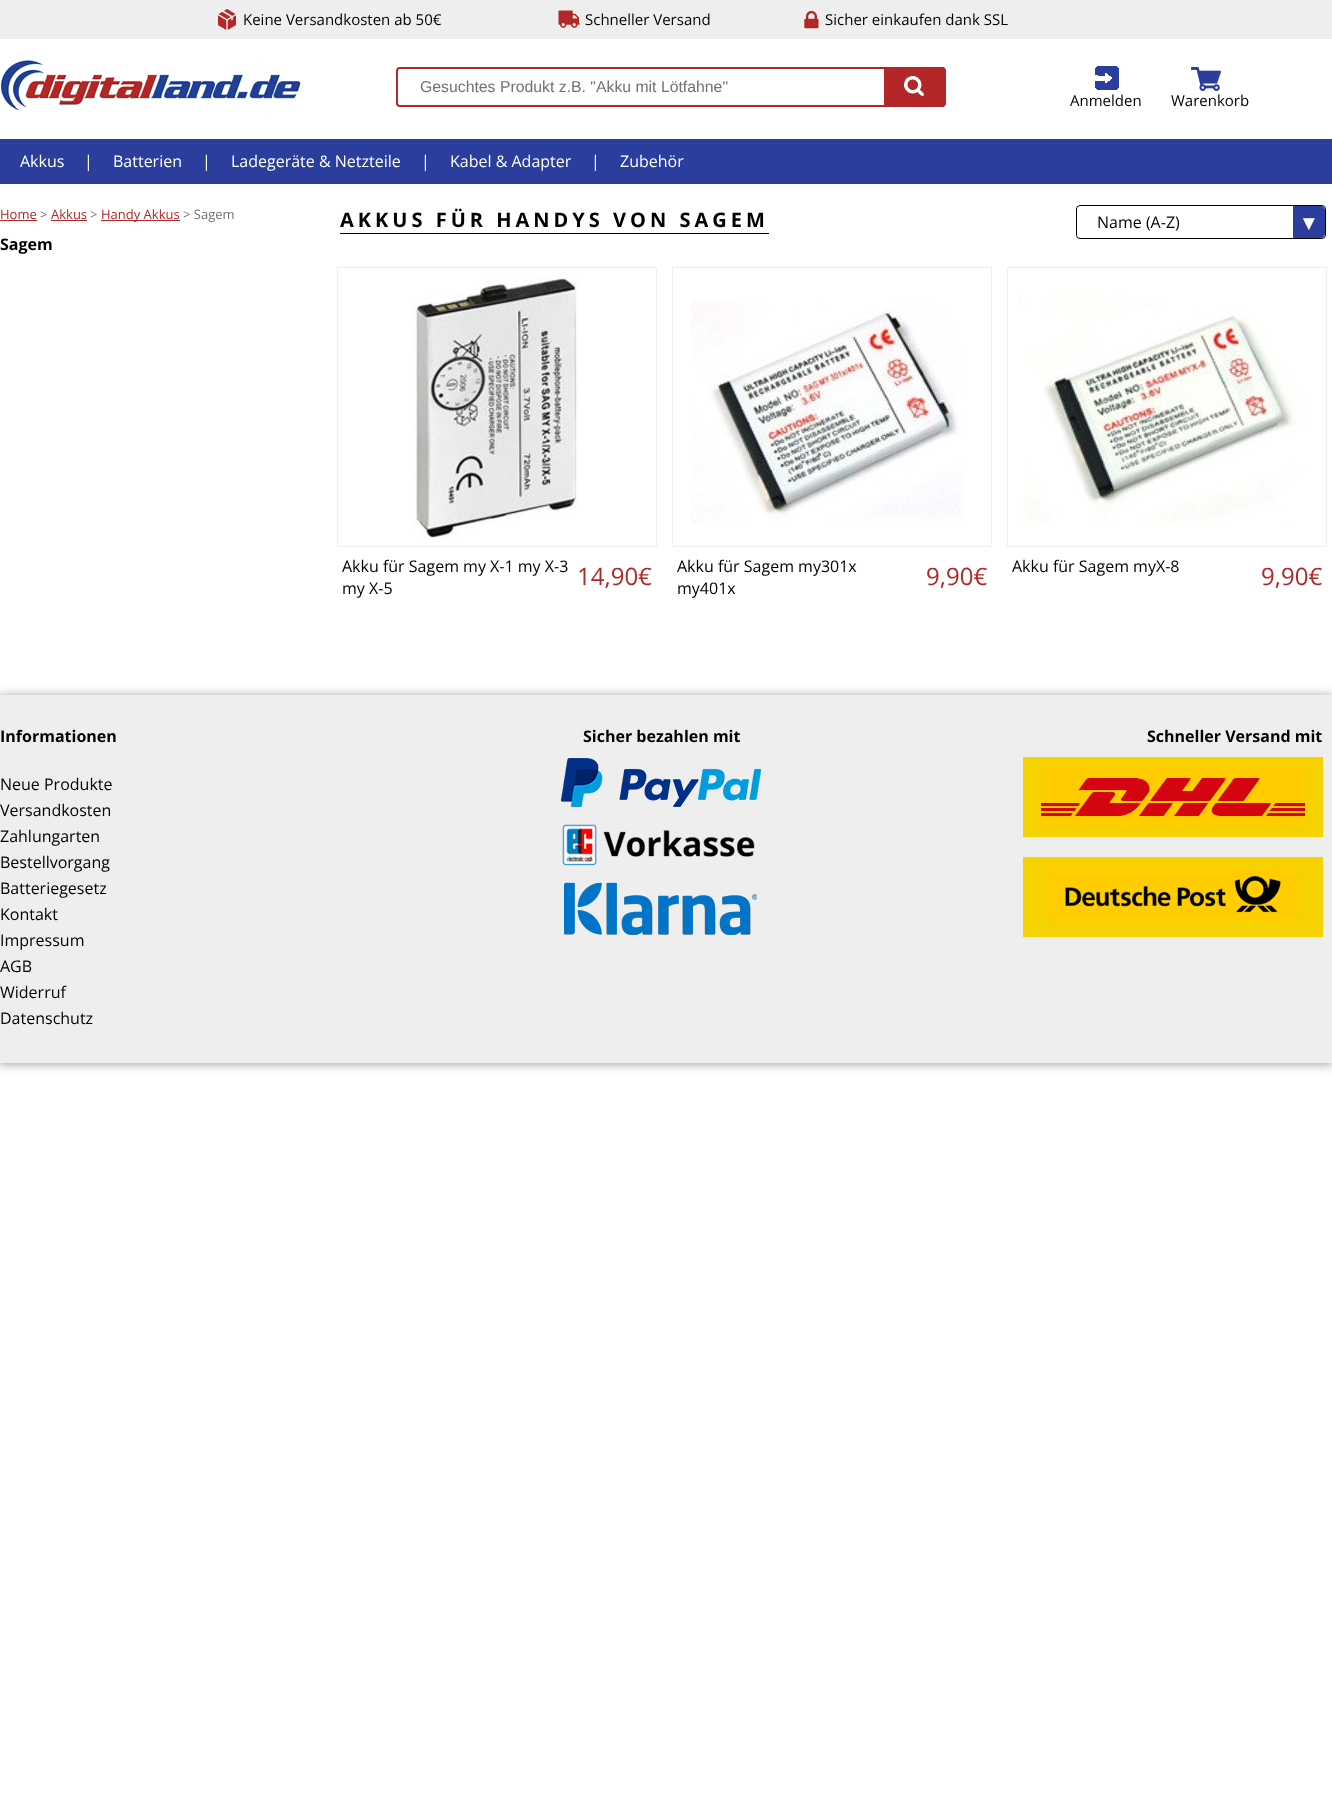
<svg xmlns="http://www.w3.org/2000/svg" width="1332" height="1805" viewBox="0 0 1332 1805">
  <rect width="100%" height="100%" fill="#fff"/>
  <path d="M0 0h1332v39H0z" fill="#eee"/>
  <image x="218" y="9" width="18" height="21" href="img/1.png"/>
  <image x="558" y="10" width="22" height="18" href="img/2.png"/>
  <image x="804" y="11" width="15" height="18" href="img/3.png"/>
  <image x="0" y="60" width="301" height="51" href="img/4.png"/>
  <rect x="397" y="68" width="548" height="38" rx="3" fill="none" stroke="#b32728" stroke-width="2"/>
  <path d="M884 67h60v40H884z" fill="#b32728"/>
  <image x="904" y="76" width="20" height="20" href="img/5.png"/>
  <image x="1095" y="66" width="24" height="24" href="img/6.png"/>
  <image x="1191" y="67" width="30" height="24" href="img/7.png"/>
  <path d="M0 139h1332v45H0z" fill="#2b3e9e"/>
  <path d="M0 220h37v1H0z" fill="#b32728"/>
  <path d="M51 220h36v1H51z" fill="#b32728"/>
  <path d="M101 220h79v1H101z" fill="#b32728"/>
  <path d="M340 233h429v1H340z" fill="#000"/>
  <rect x="1076.5" y="205.5" width="249" height="33" rx="3.5" fill="none" stroke="#000"/>
  <path d="M1293 206H1321C1323 206 1325 208 1325 210V234C1325 236 1323 238 1321 238H1293Z" fill="#2b3e9e"/>
  <path d="M337.5 267.5h319v279H337.5z" fill="none" stroke="#eee"/>
  <image x="411" y="278" width="168" height="260" href="img/8.png"/>
  <path d="M672.5 267.5h319v279H672.5z" fill="none" stroke="#eee"/>
  <image x="691" y="300" width="273" height="223" href="img/9.png"/>
  <path d="M1007.5 267.5h319v279H1007.5z" fill="none" stroke="#eee"/>
  <image x="1018" y="294" width="288" height="232" href="img/10.png"/>
  <path d="M-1 695h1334v370H-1z" fill="#00000054" filter="blur(5px)"/>
  <path d="M0 695h1332v368H0z" fill="#eee"/>
  <image x="561" y="758" width="200" height="49" href="img/11.png"/>
  <image x="562" y="824" width="193" height="42" href="img/12.png"/>
  <image x="564" y="882" width="194" height="53" href="img/13.png"/>
  <path d="M1023 757h300v80H1023z" fill="#f6d300"/>
  <image x="1041" y="768" width="264" height="58" href="img/14.png"/>
  <path d="M1023 857h300v80H1023z" fill="#f6d300"/>
  <image x="1048" y="867" width="250" height="55" href="img/15.png"/>
  <g font-family="Open Sans" font-size="15" fill="#000">
    <text x="243" y="25">Keine Versandkosten ab 50€</text>
    <text x="585" y="25">Schneller Versand</text>
    <text x="825" y="25">Sicher einkaufen dank SSL</text>
  </g>
  <text x="420" y="92" font-family="Liberation Sans" font-size="15.8" fill="#717171">Gesuchtes Produkt z.B. "Akku mit Lötfahne"</text>
  <g font-family="Open Sans" font-size="15" fill="#000">
    <text x="1070" y="106">Anmelden</text>
    <text x="1171" y="106">Warenkorb</text>
  </g>
  <g font-family="Open Sans" font-size="16" fill="#fff">
    <text x="20" y="167">Akkus</text>
    <text x="84" y="167">|</text>
    <text x="113" y="167">Batterien</text>
    <text x="202" y="167">|</text>
    <text x="231" y="167">Ladegeräte &amp; Netzteile</text>
    <text x="421" y="167">|</text>
    <text x="450" y="167">Kabel &amp; Adapter</text>
    <text x="591" y="167">|</text>
    <text x="620" y="167">Zubehör</text>
  </g>
  <text x="0" y="219" font-family="Open Sans" font-size="13" fill="#b32728">Home</text>
  <text x="40" y="219" font-family="Open Sans" font-size="13" fill="#717171">&gt;</text>
  <text x="51" y="219" font-family="Open Sans" font-size="13" fill="#b32728">Akkus</text>
  <text x="90" y="219" font-family="Open Sans" font-size="13" fill="#717171">&gt;</text>
  <text x="101" y="219" font-family="Open Sans" font-size="13" fill="#b32728">Handy Akkus</text>
  <text x="183" y="219" font-family="Open Sans" font-size="13" fill="#717171">&gt; Sagem</text>
  <text x="0" y="250" font-family="Open Sans" font-size="16" font-weight="bold" fill="#000">Sagem</text>
  <text x="340" y="227" font-family="Open Sans" font-size="20" font-weight="bold" letter-spacing="4" fill="#000">AKKUS FÜR HANDYS VON SAGEM</text>
  <text x="1097" y="228" font-family="Open Sans" font-size="16" fill="#000">Name (A-Z)</text>
  <text x="1303" y="230" font-family="DejaVu Sans" font-size="22" font-weight="bold" fill="#fff">▾</text>
  <g font-family="Open Sans" font-size="16" fill="#000">
    <text x="342" y="572">Akku für Sagem my X-1 my X-3</text>
    <text x="342" y="594">my X-5</text>
  </g>
  <text x="577" y="585" font-family="Open Sans" font-size="24" fill="#b32728">14,90€</text>
  <g font-family="Open Sans" font-size="16" fill="#000">
    <text x="677" y="572">Akku für Sagem my301x</text>
    <text x="677" y="594">my401x</text>
  </g>
  <text x="926" y="585" font-family="Open Sans" font-size="24" fill="#b32728">9,90€</text>
  <text x="1012" y="572" font-family="Open Sans" font-size="16" fill="#000">Akku für Sagem myX-8</text>
  <text x="1261" y="585" font-family="Open Sans" font-size="24" fill="#b32728">9,90€</text>
  <text x="0" y="742" font-family="Open Sans" font-size="16" font-weight="bold" fill="#000">Informationen</text>
  <g font-family="Open Sans" font-size="16" fill="#000">
    <text x="0" y="790">Neue Produkte</text>
    <text x="0" y="816">Versandkosten</text>
    <text x="0" y="842">Zahlungarten</text>
    <text x="0" y="868">Bestellvorgang</text>
    <text x="0" y="894">Batteriegesetz</text>
    <text x="0" y="920">Kontakt</text>
    <text x="0" y="946">Impressum</text>
    <text x="0" y="972">AGB</text>
    <text x="0" y="998">Widerruf</text>
    <text x="0" y="1024">Datenschutz</text>
  </g>
  <g font-family="Open Sans" font-size="16" font-weight="bold" fill="#000">
    <text x="583" y="742">Sicher bezahlen mit</text>
    <text x="1147" y="742">Schneller Versand mit</text>
  </g>
</svg>
